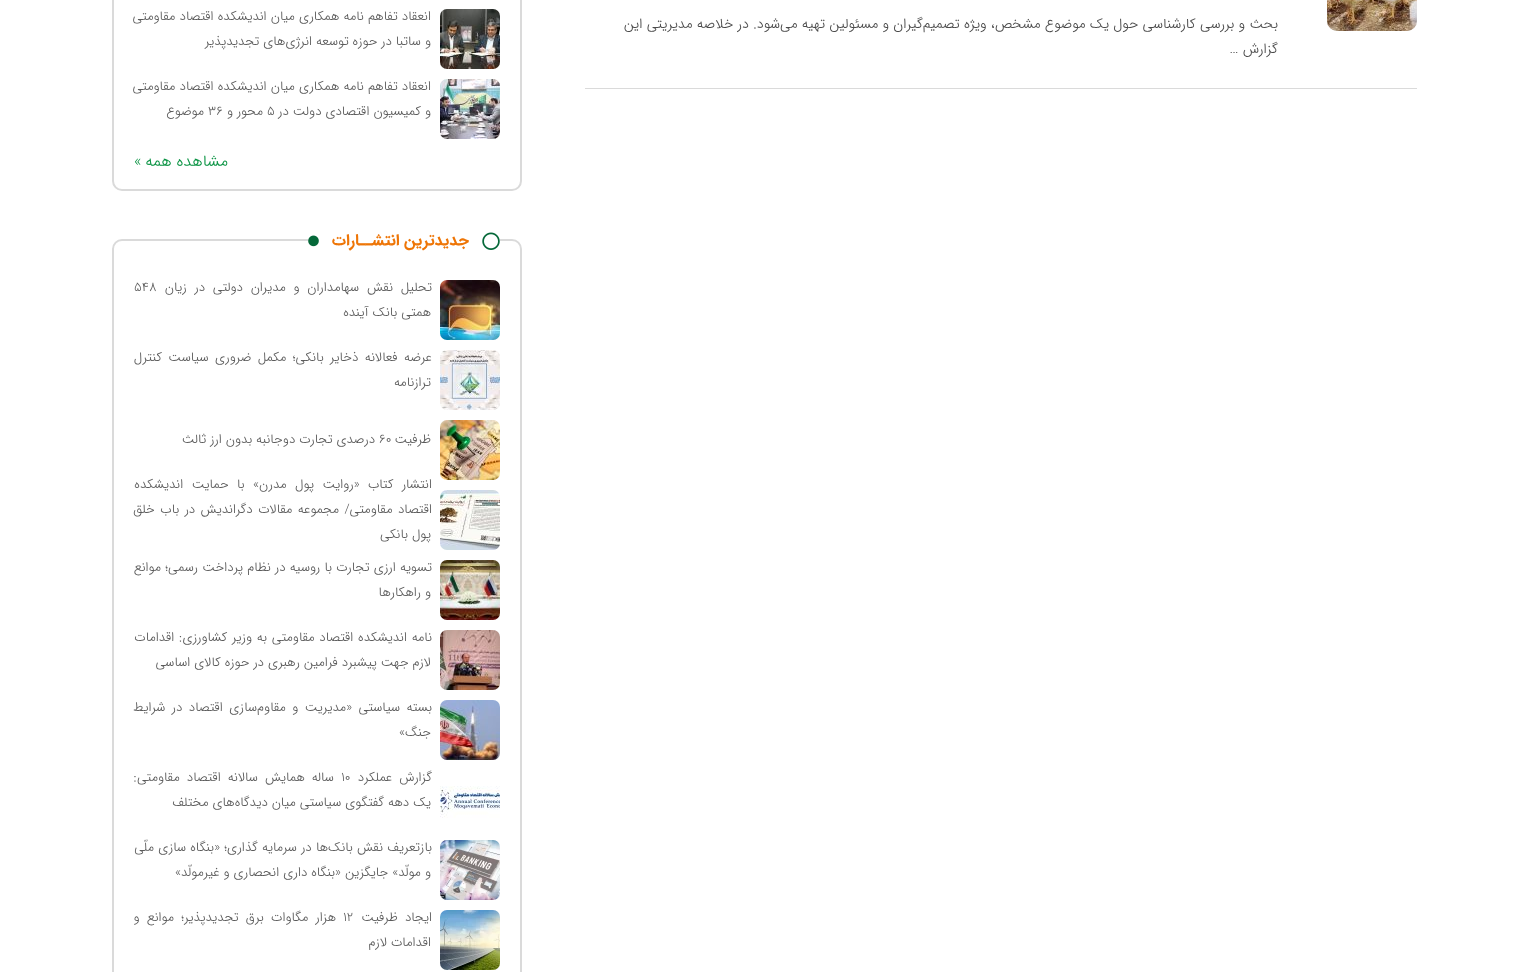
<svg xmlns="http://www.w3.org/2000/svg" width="1513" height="972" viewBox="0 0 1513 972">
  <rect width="100%" height="100%" fill="#fff"/>
  <path d="M585 88h832v1H585z" fill="#dadada"/>
  <image x="1327" y="0" width="90" height="31" href="img/1.png"/>
  <rect x="113" y="-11" width="408" height="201" rx="9" fill="none" stroke="#dadada" stroke-width="2"/>
  <image x="440" y="9" width="60" height="60" href="img/2.png"/>
  <image x="440" y="79" width="60" height="60" href="img/3.png"/>
  <rect x="113" y="240" width="408" height="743" rx="9" fill="none" stroke="#dadada" stroke-width="2"/>
  <path d="M308 239h192v2H308z" fill="#fff"/>
  <image x="482" y="232" width="18" height="18" href="img/4.png"/>
  <image x="308" y="235" width="11" height="12" href="img/5.png"/>
  <image x="440" y="280" width="60" height="60" href="img/6.png"/>
  <image x="440" y="350" width="60" height="60" href="img/7.png"/>
  <image x="440" y="420" width="60" height="60" href="img/8.png"/>
  <image x="440" y="490" width="60" height="60" href="img/9.png"/>
  <image x="440" y="560" width="60" height="60" href="img/10.png"/>
  <image x="440" y="630" width="60" height="60" href="img/11.png"/>
  <image x="440" y="700" width="60" height="60" href="img/12.png"/>
  <image x="440" y="786" width="60" height="32" href="img/13.png"/>
  <image x="440" y="840" width="60" height="60" href="img/14.png"/>
  <image x="440" y="910" width="60" height="60" href="img/15.png"/>
  <g font-family="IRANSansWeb" font-size="14" font-weight="300" direction="rtl" fill="#4b4b4b">
    <text x="1278" y="28">بحث و بررسی کارشناسی حول یک موضوع مشخص، ویژه تصمیم‌گیران و مسئولین تهیه می‌شود. در خلاصه مدیریتی این</text>
    <text x="1278" y="53">گزارش …</text>
  </g>
  <g font-family="IRANSansWeb" font-size="13" font-weight="300" direction="rtl" fill="#5b5b5b">
    <text x="431" y="20" word-spacing="0.25">انعقاد تفاهم نامه همکاری میان اندیشکده اقتصاد مقاومتی</text>
    <text x="431" y="45">و ساتبا در حوزه توسعه انرژی‌های تجدیدپذیر</text>
    <text x="431" y="90" word-spacing="0.25">انعقاد تفاهم‌ نامه همکاری میان اندیشکده اقتصاد مقاومتی</text>
    <text x="431" y="115">و کمیسیون اقتصادی دولت در</text>
  </g>
  <text x="267" y="115" font-family="IRANSansWeb" font-size="13" font-weight="300" fill="#5b5b5b">۵</text>
  <text x="263" y="115" font-family="IRANSansWeb" font-size="13" font-weight="300" direction="rtl" fill="#5b5b5b">محور و</text>
  <text x="208" y="115" font-family="IRANSansWeb" font-size="13" font-weight="300" fill="#5b5b5b">۳۶</text>
  <text x="204" y="115" font-family="IRANSansWeb" font-size="13" font-weight="300" direction="rtl" fill="#5b5b5b">موضوع</text>
  <text x="228" y="166" font-family="IRANSansWeb" font-size="16" font-weight="300" direction="rtl" fill="#0b9444">مشاهده همه</text>
  <text x="134" y="166" font-family="IRANSansWeb" font-size="16" font-weight="300" fill="#0b9444">«</text>
  <text x="469" y="245" font-family="IRANSansWeb" font-size="16" font-weight="bold" direction="rtl" fill="#ee7506">جدیدترین انتشــارات</text>
  <text x="432" y="291" word-spacing="3.75" font-family="IRANSansWeb" font-size="13" font-weight="300" direction="rtl" fill="#5b5b5b">تحلیل نقش سهامداران و مدیران دولتی در زیان</text>
  <text x="134" y="291" font-family="IRANSansWeb" font-size="13" font-weight="300" fill="#5b5b5b">۵۴۸</text>
  <g font-family="IRANSansWeb" font-size="13" font-weight="300" direction="rtl" fill="#5b5b5b">
    <text x="431" y="316">همتی بانک آینده</text>
    <text x="432" y="361" word-spacing="2.5">عرضه فعالانه ذخایر بانکی؛ مکمل ضروری سیاست کنترل</text>
    <text x="431" y="386">ترازنامه</text>
    <text x="431" y="443">ظرفیت</text>
  </g>
  <text x="379" y="443" font-family="IRANSansWeb" font-size="13" font-weight="300" fill="#5b5b5b">۶۰</text>
  <g font-family="IRANSansWeb" font-size="13" font-weight="300" direction="rtl" fill="#5b5b5b">
    <text x="375" y="443">درصدی تجارت دوجانبه بدون ارز ثالث</text>
    <text x="432" y="488" word-spacing="4.5">انتشار کتاب «روایت پول مدرن» با حمایت اندیشکده</text>
    <text x="432" y="513" word-spacing="1.5">اقتصاد مقاومتی/ مجموعه مقالات دگراندیش در باب خلق</text>
    <text x="431" y="538">پول بانکی</text>
    <text x="432" y="571" word-spacing="0.25">تسویه ارزی تجارت با روسیه در نظام پرداخت رسمی؛ موانع</text>
    <text x="431" y="596">و راهکارها</text>
    <text x="432" y="641" word-spacing="0.75">نامه اندیشکده اقتصاد مقاومتی به وزیر کشاورزی: اقدامات</text>
    <text x="431" y="666">لازم جهت پیشبرد فرامین رهبری در حوزه کالای اساسی</text>
    <text x="432" y="711" word-spacing="2.5">بسته سیاستی «مدیریت و مقاوم‌سازی اقتصاد در شرایط</text>
    <text x="431" y="736">جنگ»</text>
    <text x="432" y="781" word-spacing="3">گزارش عملکرد</text>
  </g>
  <text x="341" y="781" font-family="IRANSansWeb" font-size="13" font-weight="300" fill="#5b5b5b">۱۰</text>
  <g font-family="IRANSansWeb" font-size="13" font-weight="300" direction="rtl" fill="#5b5b5b">
    <text x="334" y="781" word-spacing="3">ساله همایش سالانه اقتصاد مقاومتی:</text>
    <text x="431" y="806">یک دهه گفتگوی سیاستی میان دیدگاه‌های مختلف</text>
    <text x="432" y="851" word-spacing="0.25">بازتعریف نقش بانک‌ها در سرمایه گذاری؛ «بنگاه سازی ملّی</text>
    <text x="431" y="876">و مولّد» جایگزین «بنگاه داری انحصاری و غیرمولّد»</text>
    <text x="432" y="921" word-spacing="3.25">ایجاد ظرفیت</text>
  </g>
  <text x="343" y="921" font-family="IRANSansWeb" font-size="13" font-weight="300" fill="#5b5b5b">۱۲</text>
  <g font-family="IRANSansWeb" font-size="13" font-weight="300" direction="rtl" fill="#5b5b5b">
    <text x="336" y="921" word-spacing="3.25">هزار مگاوات برق تجدیدپذیر؛ موانع و</text>
    <text x="431" y="946">اقدامات لازم</text>
  </g>
</svg>
